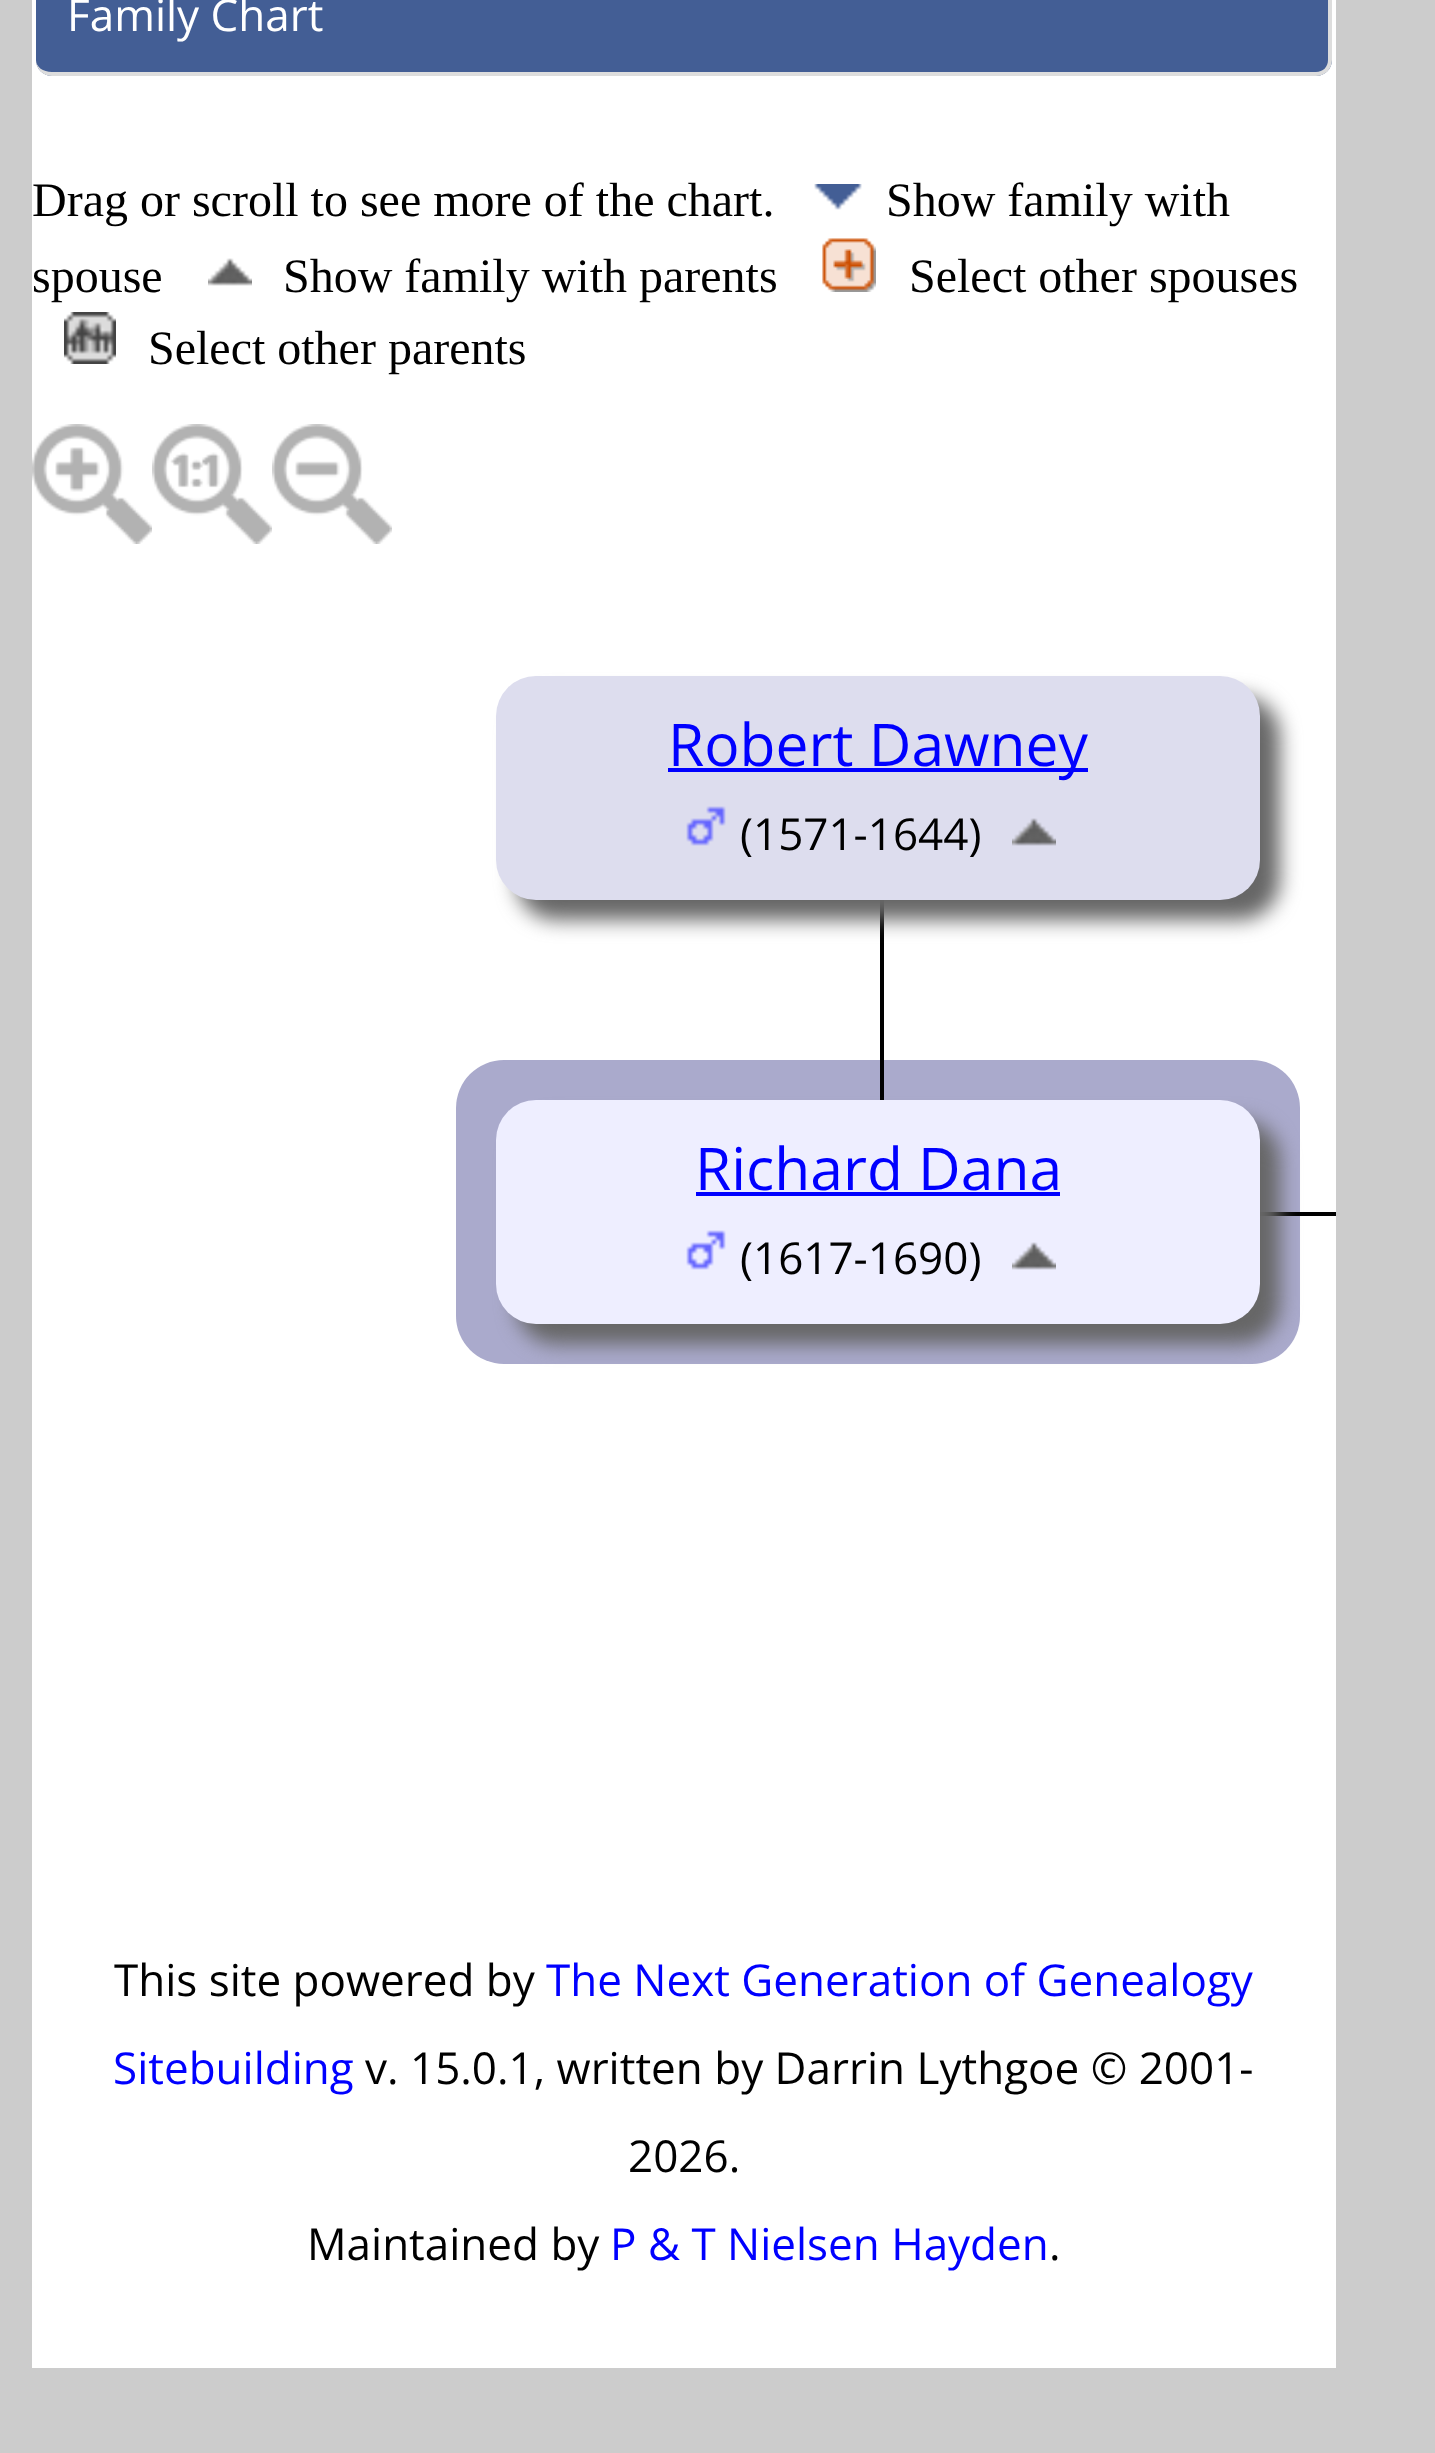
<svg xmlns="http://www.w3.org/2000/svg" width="1435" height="2453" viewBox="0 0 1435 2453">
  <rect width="100%" height="100%" fill="#ccc"/>
  <path d="M32 0h1304v2368H32z" fill="#fff"/>
  <rect x="36" y="-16" width="1296" height="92" rx="16" fill="#435e95"/>
  <path d="M52-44H1316C1325-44 1332-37 1332-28V60C1332 69 1325 76 1316 76H52C43 76 36 69 36 60V-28C36-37 43-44 52-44ZM52-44H1316C1323-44 1328-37 1328-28V60C1328 67 1323 72 1316 72H52C43 72 36 67 36 60V-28C36-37 43-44 52-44Z" fill="#ddd" fill-rule="evenodd"/>
  <image x="814" y="184" width="48" height="26" href="img/1.png"/>
  <image x="208" y="258" width="44" height="28" href="img/2.png"/>
  <image x="822" y="238" width="54" height="54" href="img/3.png"/>
  <image x="64" y="312" width="52" height="52" href="img/4.png"/>
  <image x="32" y="424" width="120" height="120" href="img/5.png"/>
  <image x="152" y="424" width="120" height="120" href="img/6.png"/>
  <image x="272" y="424" width="120" height="120" href="img/7.png"/>
  <rect x="456" y="1060" width="844" height="304" rx="48" fill="#aac"/>
  <path d="M880 900h4v200H880z" fill="#000"/>
  <rect x="516" y="696" width="764" height="224" rx="40" fill="#666" filter="blur(10px)"/>
  <rect x="496" y="676" width="764" height="224" rx="40" fill="#dde"/>
  <path d="M668 768h420v4H668z" fill="#00f"/>
  <image x="686" y="806" width="40" height="40" href="img/8.png"/>
  <image x="1012" y="818" width="44" height="28" href="img/9.png"/>
  <path d="M1260 1212h76v4H1260z" fill="#000"/>
  <rect x="516" y="1120" width="764" height="224" rx="40" fill="#666" filter="blur(10px)"/>
  <rect x="496" y="1100" width="764" height="224" rx="40" fill="#eef"/>
  <path d="M696 1192h364v4H696z" fill="#00f"/>
  <image x="686" y="1230" width="40" height="40" href="img/10.png"/>
  <image x="1012" y="1242" width="44" height="28" href="img/11.png"/>
  <text x="67" y="31" font-family="Open Sans" font-size="44" fill="#fff">Family Chart</text>
  <g font-family="Liberation Serif" font-size="48" fill="#000">
    <text x="32" y="216">Drag or scroll to see more of the chart.</text>
    <text x="886" y="216">Show family with</text>
    <text x="32" y="292">spouse</text>
    <text x="283" y="292">Show family with parents</text>
    <text x="909" y="292">Select other spouses</text>
    <text x="148" y="364">Select other parents</text>
  </g>
  <text x="668" y="766" font-family="Open Sans" font-size="58.75" fill="#00f">Robert Dawney</text>
  <text x="740" y="850" font-family="Open Sans" font-size="44" fill="#000">(1571-1644)</text>
  <text x="695" y="1190" font-family="Open Sans" font-size="58.75" fill="#00f">Richard Dana</text>
  <g font-family="Open Sans" font-size="44" fill="#000">
    <text x="740" y="1274">(1617-1690)</text>
    <text x="114" y="1996">This site powered by</text>
  </g>
  <g font-family="Open Sans" font-size="44" fill="#00f">
    <text x="546" y="1996">The Next Generation of Genealogy</text>
    <text x="113" y="2084">Sitebuilding</text>
  </g>
  <g font-family="Open Sans" font-size="44" fill="#000">
    <text x="365" y="2084">v. 15.0.1, written by Darrin Lythgoe © 2001-</text>
    <text x="628" y="2172">2026.</text>
    <text x="307" y="2260">Maintained by</text>
  </g>
  <text x="610" y="2260" font-family="Open Sans" font-size="44" fill="#00f">P &amp; T Nielsen Hayden</text>
  <text x="1049" y="2260" font-family="Open Sans" font-size="44" fill="#000">.</text>
</svg>
